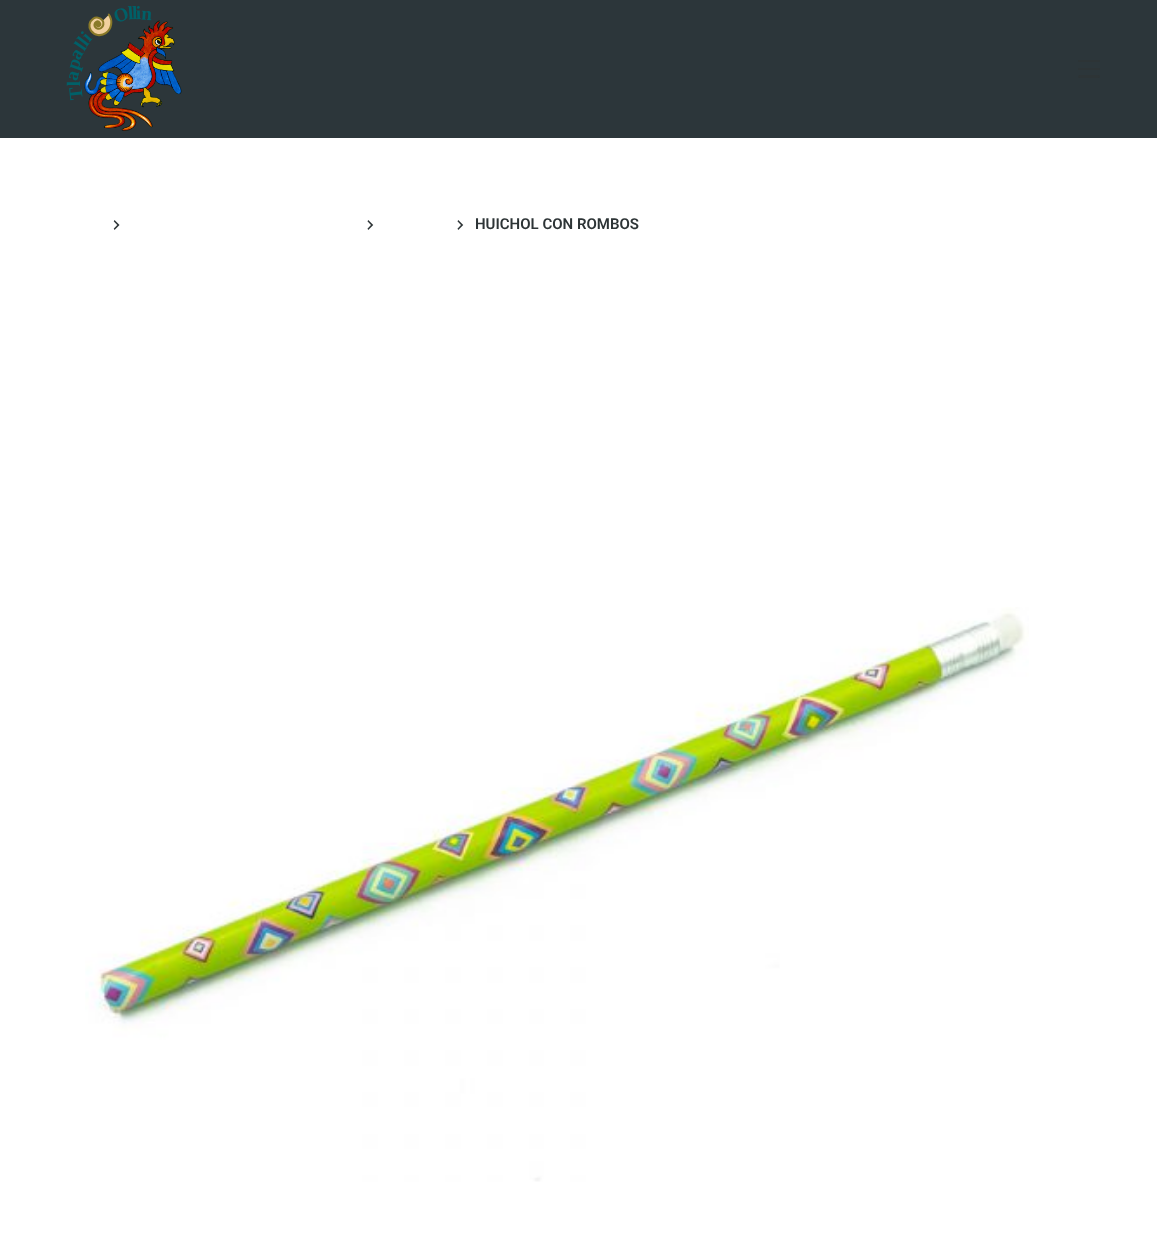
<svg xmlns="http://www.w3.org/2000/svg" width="1157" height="1260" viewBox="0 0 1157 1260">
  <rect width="100%" height="100%" fill="#fff"/>
  <path d="M0 0h1157v138H0z" fill="#2c363a"/>
  <image x="66" y="6" width="116" height="125" href="img/1.png"/>
  <rect x="1078" y="60" width="22" height="2" rx="1" fill="#2d3436"/>
  <rect x="1078" y="68" width="22" height="2" rx="1" fill="#2d3436"/>
  <rect x="1078" y="75" width="22" height="3" rx="1.5" fill="#2d3436"/>
  <image x="113" y="220" width="7" height="10" href="img/2.png"/>
  <image x="367" y="220" width="7" height="10" href="img/3.png"/>
  <image x="457" y="220" width="7" height="10" href="img/3.png"/>
  <image x="85" y="607" width="944" height="575" href="img/4.png"/>
  <text x="475" y="229" font-family="Roboto" font-size="15" font-weight="600" fill="#2d3436">HUICHOL CON ROMBOS</text>
</svg>
